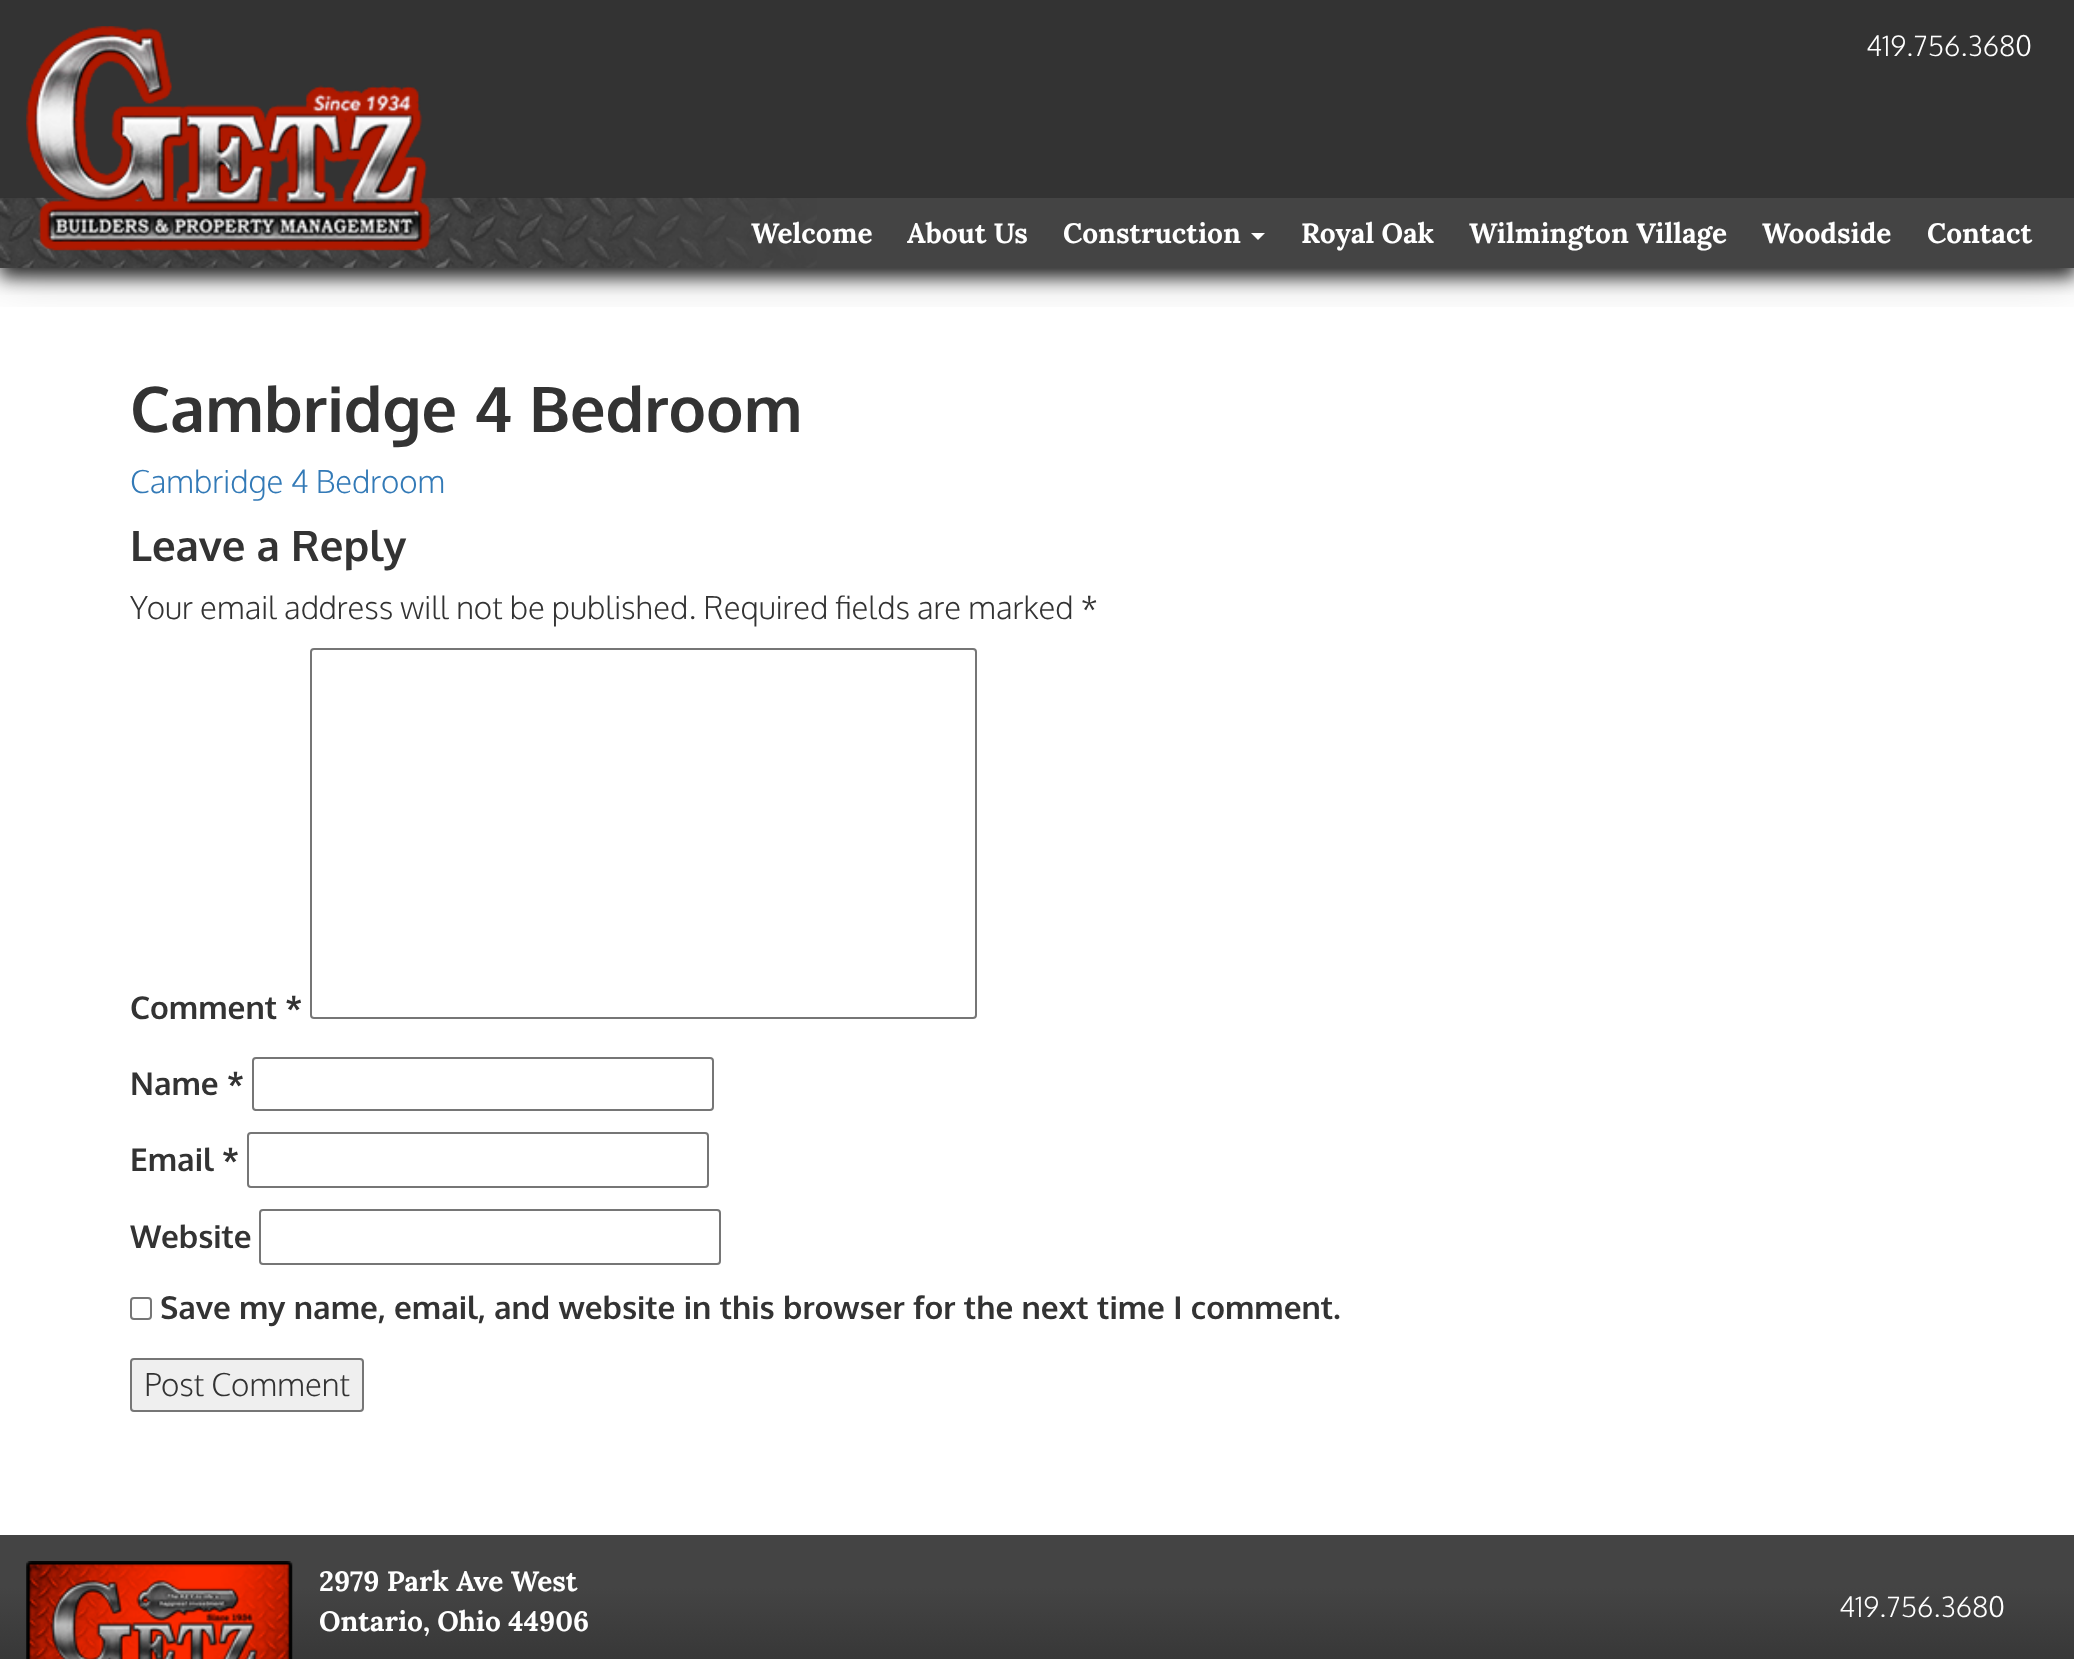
<svg xmlns="http://www.w3.org/2000/svg" width="2074" height="1659" viewBox="0 0 2074 1659">
  <defs>
    <clipPath id="clip1"><path d="M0 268h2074v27H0z"/></clipPath>
    <clipPath id="clip2"><path d="M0 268h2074v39H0z"/></clipPath>
    <linearGradient id="g1" gradientUnits="userSpaceOnUse" x1="1038" y1="1535" x2="1038" y2="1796"><stop offset="0.2" stop-color="#444"/><stop offset="0.8" stop-color="#292929"/></linearGradient>
  </defs>
  <rect width="100%" height="100%" fill="#fff"/>
  <g clip-path="url(#clip1)">
    <path d="M0 9h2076v268H0z" fill="#000000cc" filter="blur(9px)"/>
  </g>
  <g clip-path="url(#clip2)">
    <path d="M0 0h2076v268H0z" fill="#0000004d" filter="blur(26px)"/>
  </g>
  <path d="M0 0h2074v198H0z" fill="#000000cc"/>
  <path d="M0 198h2074v70H0z" fill="#444"/>
  <image x="0" y="197" width="817" height="71" href="img/2.png"/>
  <image x="26" y="26" width="405" height="225" href="img/1.png"/>
  <path d="M1251 233H1265L1258 240Z" fill="#fff"/>
  <rect x="311" y="649" width="665" height="369" rx="3" fill="none" stroke="#767676" stroke-width="2"/>
  <rect x="253" y="1058" width="460" height="52" rx="3" fill="none" stroke="#767676" stroke-width="2"/>
  <rect x="248" y="1133" width="460" height="54" rx="3" fill="none" stroke="#767676" stroke-width="2"/>
  <rect x="260" y="1210" width="460" height="54" rx="3" fill="none" stroke="#767676" stroke-width="2"/>
  <rect x="131" y="1298" width="20" height="21" rx="3" fill="none" stroke="#767676" stroke-width="2"/>
  <rect x="131" y="1359" width="232" height="52" rx="3" fill="#efefef" stroke="#767676" stroke-width="2"/>
  <path d="M0 1535h2074v124H0z" fill="url(#g1)"/>
  <image x="26" y="1561" width="267" height="98" href="img/3.png"/>
  <text x="1866" y="56" font-family="Oxygen" font-size="28" font-weight="300" fill="#fff">419.756.3680</text>
  <g font-family="Lora" font-size="28" font-weight="bold" fill="#fff">
    <text x="751" y="243">Welcome</text>
    <text x="907" y="243">About Us</text>
    <text x="1063" y="243">Construction</text>
    <text x="1301" y="243">Royal Oak</text>
    <text x="1469" y="243">Wilmington Village</text>
    <text x="1762" y="243">Woodside</text>
    <text x="1927" y="243">Contact</text>
  </g>
  <text x="130" y="432" font-family="Oxygen" font-size="63" font-weight="bold" fill="#333">Cambridge 4 Bedroom</text>
  <text x="130" y="493" font-family="Oxygen" font-size="31.5" font-weight="300" fill="#337ab7">Cambridge 4 Bedroom</text>
  <text x="130" y="561" font-family="Oxygen" font-size="42" font-weight="bold" fill="#333">Leave a Reply</text>
  <text x="130" y="619" font-family="Oxygen" font-size="31.5" font-weight="300" fill="#333">Your email address will not be published. Required fields are marked *</text>
  <g font-family="Oxygen" font-size="31.5" font-weight="bold" fill="#333">
    <text x="130" y="1019">Comment *</text>
    <text x="130" y="1095">Name *</text>
    <text x="130" y="1171">Email *</text>
    <text x="130" y="1248">Website</text>
    <text x="160" y="1319">Save my name, email, and website in this browser for the next time I comment.</text>
  </g>
  <text x="144" y="1396" font-family="Oxygen" font-size="31.5" font-weight="300" fill="#333">Post Comment</text>
  <g font-family="Lora" font-size="28" font-weight="bold" fill="#fff">
    <text x="319" y="1591">2979 Park Ave West</text>
    <text x="319" y="1631">Ontario, Ohio 44906</text>
  </g>
  <text x="1839" y="1617" font-family="Oxygen" font-size="28" font-weight="300" fill="#fff">419.756.3680</text>
</svg>
